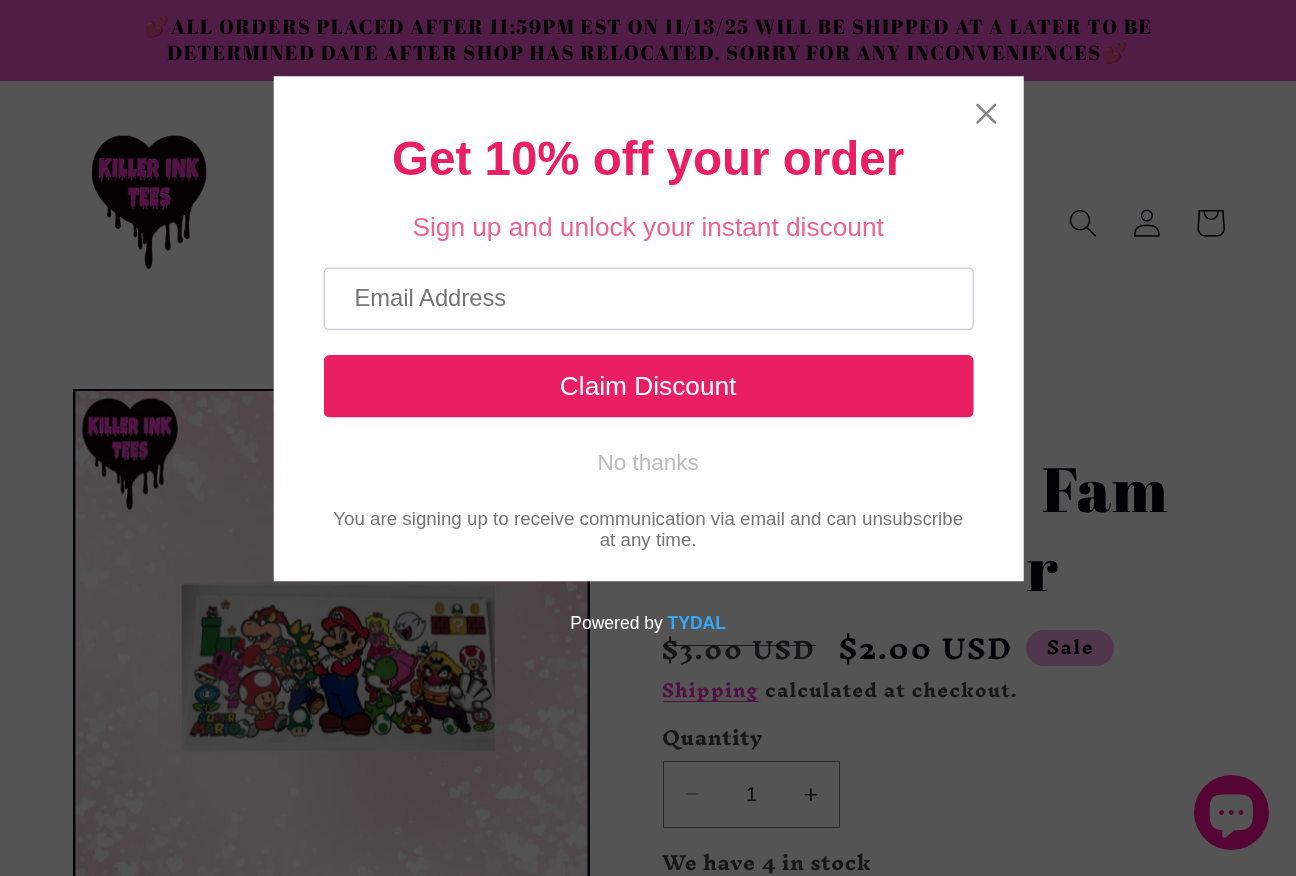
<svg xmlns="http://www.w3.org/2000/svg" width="1296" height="876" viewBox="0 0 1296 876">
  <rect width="100%" height="100%" fill="#fff"/>
  <path d="M0 0h1296v80H0z" fill="#f557d5"/>
  <path d="M0 80h1296v1H0z" fill="#e251c5"/>
  <image x="91" y="135" width="116" height="135" href="img/2.png"/>
  <image x="1069" y="210" width="28" height="27" href="img/3.png"/>
  <image x="1134" y="209" width="26" height="28" href="img/4.png"/>
  <image x="1197" y="209" width="28" height="28" href="img/5.png"/>
  <path d="M74.5 390.5h514v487H74.5z" fill="none" stroke="#020912" stroke-width="3"/>
  <image x="75" y="391" width="513" height="485" href="img/6.png"/>
  <rect x="1026.5" y="630.5" width="87" height="35" rx="17.5" fill="#f2a6e5" stroke="#f2a6e5"/>
  <path d="M663 701h96v1H663z" fill="#f431cd"/>
  <image x="685" y="793" width="14" height="2" href="img/7.png"/>
  <image x="804" y="788" width="14" height="13" href="img/8.png"/>
  <path d="M663.5 761.5h176v66H663.5z" fill="none" stroke="#74787d"/>
  <circle cx="1231.5" cy="812.5" r="37.5" fill="#fd129d"/>
  <image x="1209" y="794" width="44" height="44" href="img/9.png"/>
  <text x="144" y="34" font-family="Noto Color Emoji" font-size="20.3" letter-spacing="1.45" fill="#0c0c0c">💕</text>
  <g font-family="Abril Fatface" font-size="20.3" letter-spacing="1.45" fill="#0c0c0c">
    <text x="171" y="34">ALL ORDERS PLACED AFTER 11:59PM EST ON 11/13/25 WILL BE SHIPPED AT A LATER TO BE</text>
    <text x="167" y="60">DETERMINED DATE AFTER SHOP HAS RELOCATED. SORRY FOR ANY INCONVENIENCES</text>
  </g>
  <text x="1102" y="60" font-family="Noto Color Emoji" font-size="20.3" letter-spacing="1.45" fill="#0c0c0c">💕</text>
  <g font-family="Abril Fatface" font-size="62.5" letter-spacing="1" fill="#020912">
    <text x="1042" y="512">Fam</text>
    <text x="1027" y="591">r</text>
  </g>
  <text x="662" y="659" font-family="Inknut Antiqua" font-size="23" font-weight="bold" letter-spacing="1.9" fill="#41474d">$3.00 USD</text>
  <path d="M663 645h153v1H663z" fill="#020912bf"/>
  <text x="839" y="659" font-family="Inknut Antiqua" font-size="26" font-weight="bold" letter-spacing="1.9" fill="#020912">$2.00 USD</text>
  <text x="1047" y="654" font-family="Inknut Antiqua" font-size="17.25" font-weight="bold" letter-spacing="1.45" fill="#0c0c0c">Sale</text>
  <text x="662" y="697" font-family="Inknut Antiqua" font-size="17.25" font-weight="bold" letter-spacing="1" fill="#f430cd">Shipping</text>
  <text x="765" y="697" font-family="Inknut Antiqua" font-size="17.25" font-weight="bold" letter-spacing="1" fill="#41474d">calculated at checkout.</text>
  <text x="662" y="745" font-family="Inknut Antiqua" font-size="18.75" font-weight="bold" letter-spacing="0.6" fill="#41474d">Quantity</text>
  <text x="746" y="801" font-family="Liberation Sans" font-size="20" fill="#282e36">1</text>
  <text x="662" y="870" font-family="Inknut Antiqua" font-size="18.75" font-weight="bold" letter-spacing="0.6" fill="#41474d">We have 4 in stock</text>
  <image x="0" y="0" width="1296" height="876" href="img/1.png"/>
</svg>
